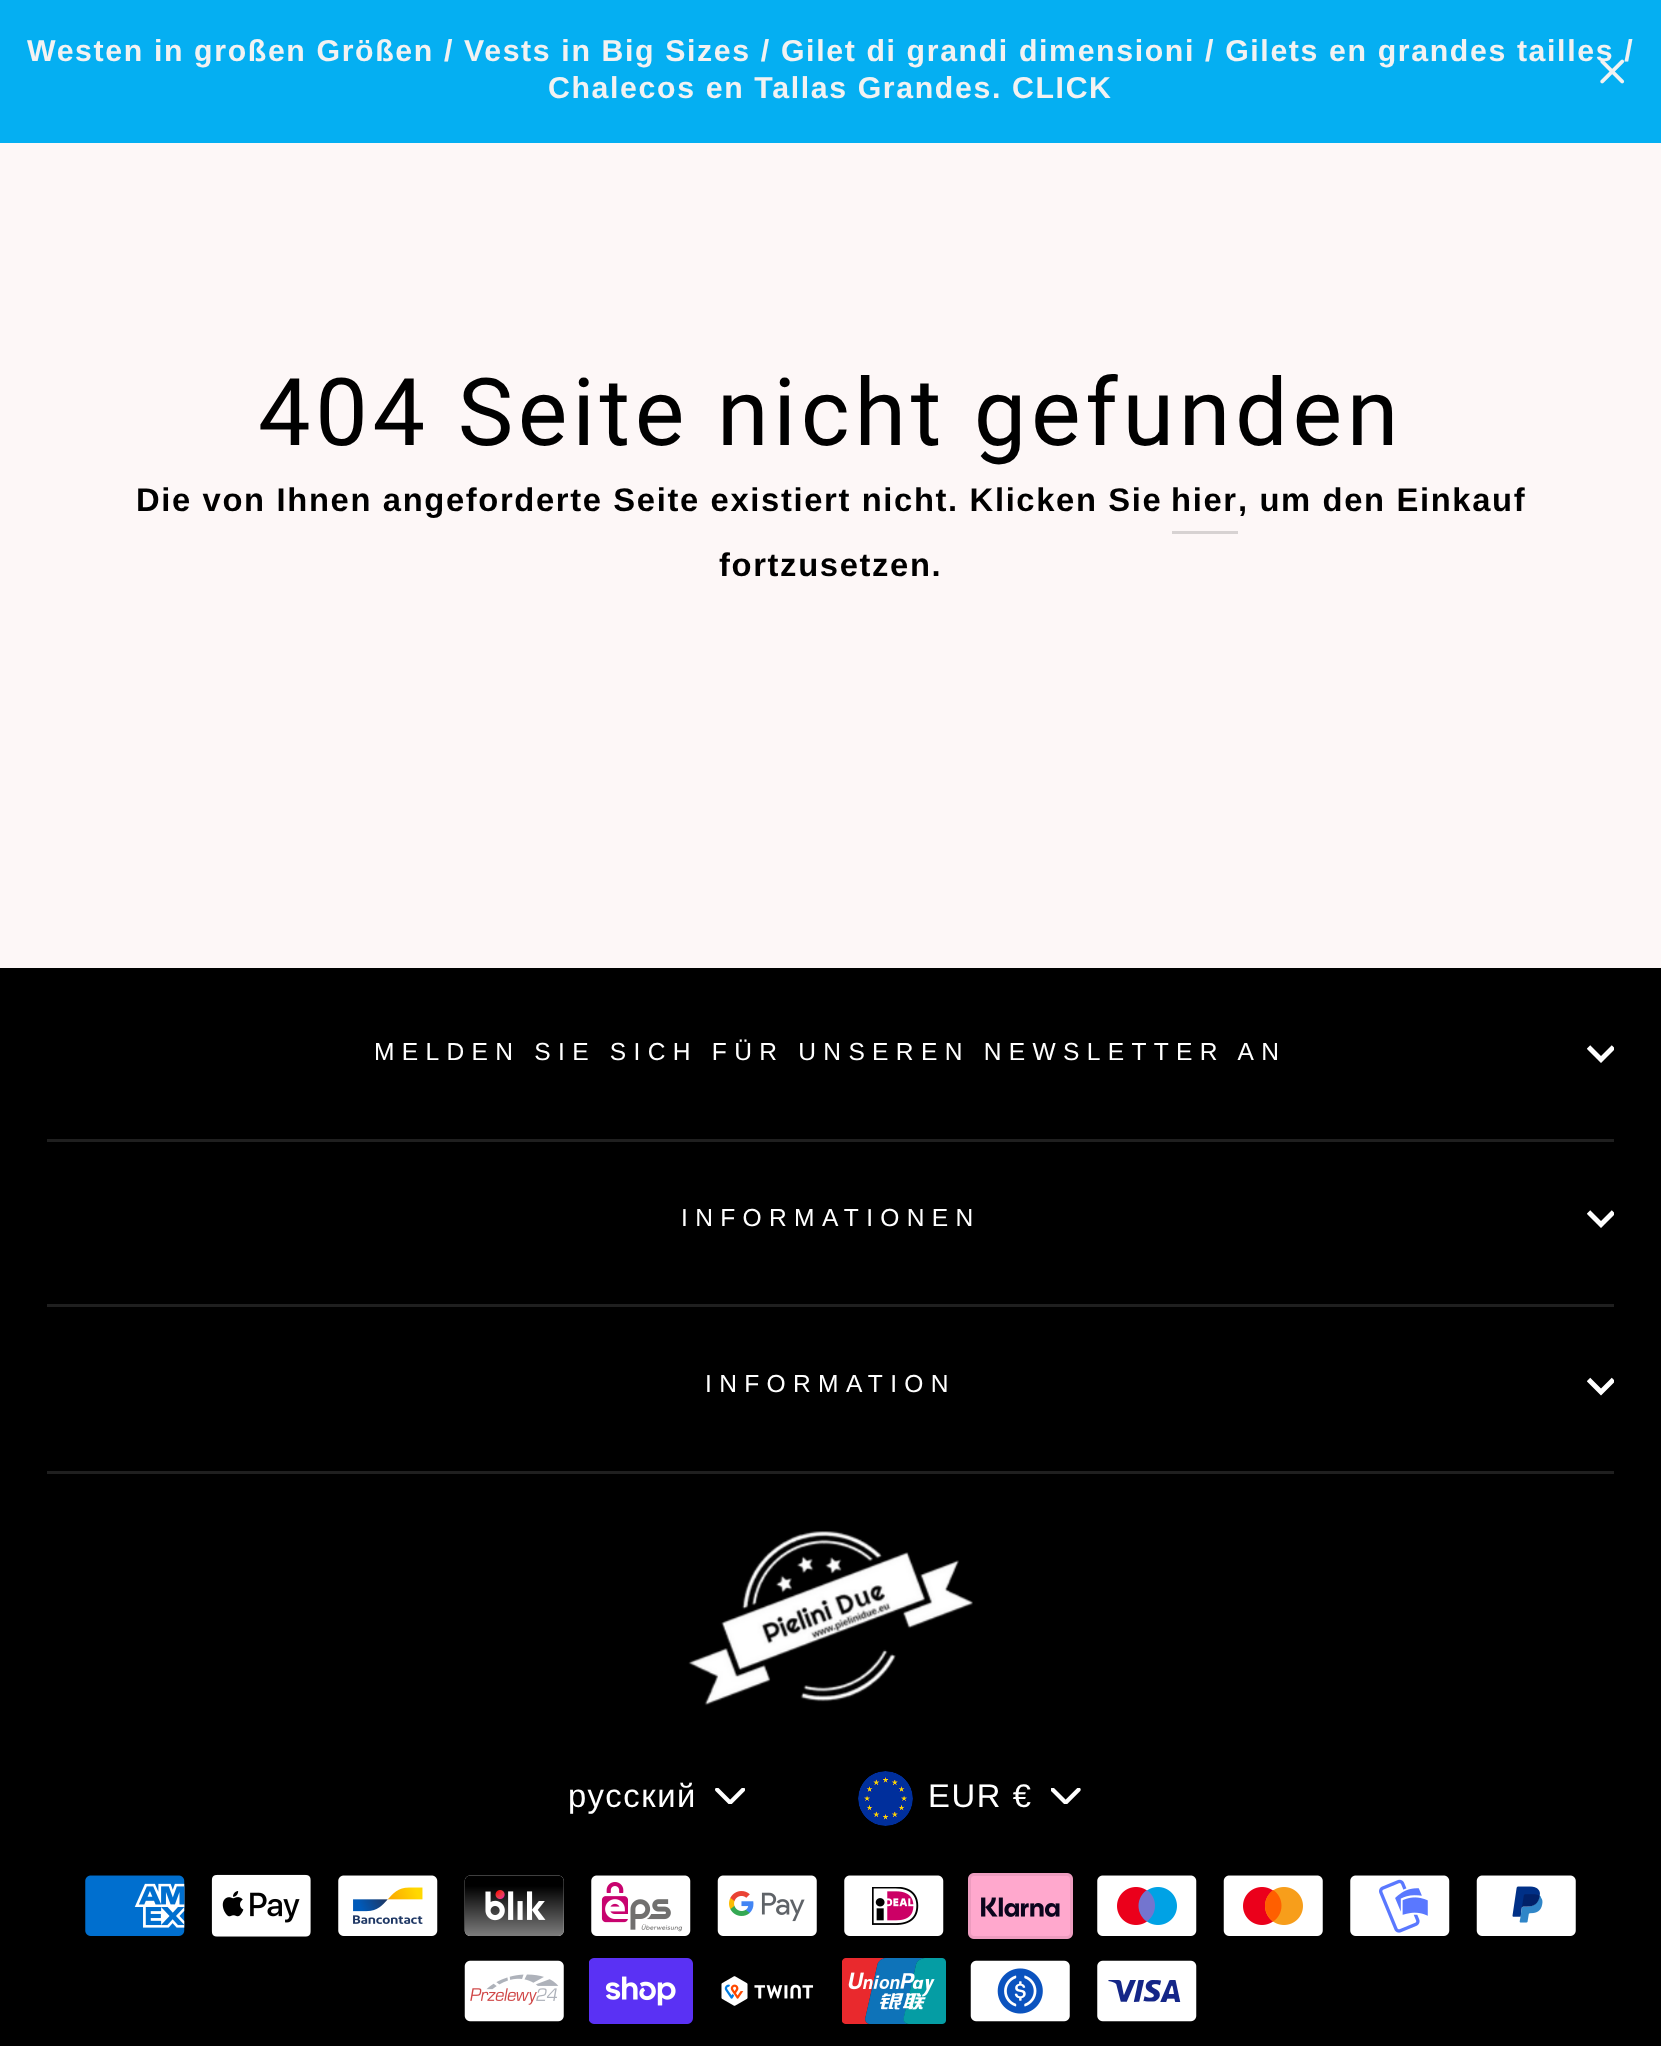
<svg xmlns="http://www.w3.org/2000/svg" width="1661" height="2046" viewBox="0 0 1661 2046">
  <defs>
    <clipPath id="clip1"><path d="M1587 1040h27v27H1587z"/></clipPath>
    <clipPath id="clip2"><path d="M1587 1205h27v27H1587z"/></clipPath>
    <clipPath id="clip3"><path d="M1587 1372h27v28H1587z"/></clipPath>
  </defs>
  <rect width="100%" height="100%" fill="#fdf7f7"/>
  <path d="M0 0h1661v143H0z" fill="#05aff2"/>
  <path d="M1172 531h66v3H1172z" fill="#d7d2d2"/>
  <path d="M0 968h1661v1078H0z" fill="#000"/>
  <g clip-path="url(#clip1)">
    <path d="M1588.5 1047L1601 1059.5L1613.5 1047" fill="none" stroke="#fff" stroke-width="4.9"/>
  </g>
  <path d="M47 1139h1567v3H47z" fill="#1f1f1f"/>
  <g clip-path="url(#clip2)">
    <path d="M1588.5 1212L1601 1224.5L1613.5 1212" fill="none" stroke="#fff" stroke-width="4.9"/>
  </g>
  <path d="M47 1304h1567v3H47z" fill="#1f1f1f"/>
  <g clip-path="url(#clip3)">
    <path d="M1588.5 1379.5L1601 1392L1613.5 1379.5" fill="none" stroke="#fff" stroke-width="4.9"/>
  </g>
  <path d="M47 1471h1567v3H47z" fill="#1f1f1f"/>
  <image x="688" y="1531" width="285" height="175" href="img/2.png"/>
  <image x="715" y="1788" width="30" height="16" href="img/3.png"/>
  <image x="1051" y="1788" width="30" height="16" href="img/4.png"/>
  <image x="858" y="1771" width="55" height="55" href="img/5.png"/>
  <image x="85" y="1875" width="100" height="61" href="img/6.png"/>
  <image x="211" y="1874" width="100" height="63" href="img/7.png"/>
  <image x="338" y="1875" width="100" height="61" href="img/8.png"/>
  <image x="464" y="1875" width="100" height="61" href="img/9.png"/>
  <image x="591" y="1875" width="100" height="61" href="img/10.png"/>
  <image x="717" y="1875" width="100" height="61" href="img/11.png"/>
  <image x="844" y="1875" width="100" height="61" href="img/12.png"/>
  <image x="968" y="1873" width="105" height="66" href="img/13.png"/>
  <image x="1097" y="1875" width="100" height="61" href="img/14.png"/>
  <image x="1223" y="1875" width="100" height="61" href="img/15.png"/>
  <image x="1350" y="1875" width="100" height="61" href="img/16.png"/>
  <image x="1476" y="1875" width="100" height="61" href="img/17.png"/>
  <image x="464" y="1960" width="100" height="62" href="img/18.png"/>
  <image x="589" y="1958" width="104" height="66" href="img/19.png"/>
  <image x="721" y="1976" width="93" height="30" href="img/20.png"/>
  <image x="842" y="1958" width="104" height="66" href="img/21.png"/>
  <image x="970" y="1960" width="100" height="62" href="img/22.png"/>
  <image x="1097" y="1960" width="100" height="62" href="img/23.png"/>
  <g font-family="Liberation Sans" font-size="30.25" font-weight="bold" letter-spacing="1.64" fill="#f2f2f2">
    <text x="27" y="61">Westen in großen Größen / Vests in Big Sizes / Gilet di grandi dimensioni / Gilets en grandes tailles /</text>
    <text x="548" y="98">Chalecos en Tallas Grandes. CLICK</text>
  </g>
  <image x="1600" y="59" width="25" height="25" href="img/1.png"/>
  <text x="258" y="445" font-family="Roboto" font-size="93.5" letter-spacing="4.7" fill="#000">404 Seite nicht gefunden</text>
  <g font-family="Liberation Sans" font-size="32.75" font-weight="bold" letter-spacing="1.64" fill="#000">
    <text x="136" y="511">Die von Ihnen angeforderte Seite existiert nicht. Klicken Sie</text>
    <text x="1171" y="511">hier</text>
    <text x="1238" y="511">, um den Einkauf</text>
    <text x="719" y="576">fortzusetzen.</text>
  </g>
  <g font-family="Liberation Sans" font-size="24.55" letter-spacing="7.35" fill="#fff">
    <text x="374" y="1060" word-spacing="-0.25">MELDEN SIE SICH FÜR UNSEREN NEWSLETTER AN</text>
    <text x="681" y="1226">INFORMATIONEN</text>
    <text x="705" y="1392">INFORMATION</text>
  </g>
  <g font-family="Liberation Sans" font-size="32.75" letter-spacing="1.64" fill="#fff">
    <text x="568" y="1807">русский</text>
    <text x="928" y="1807">EUR €</text>
  </g>
</svg>
